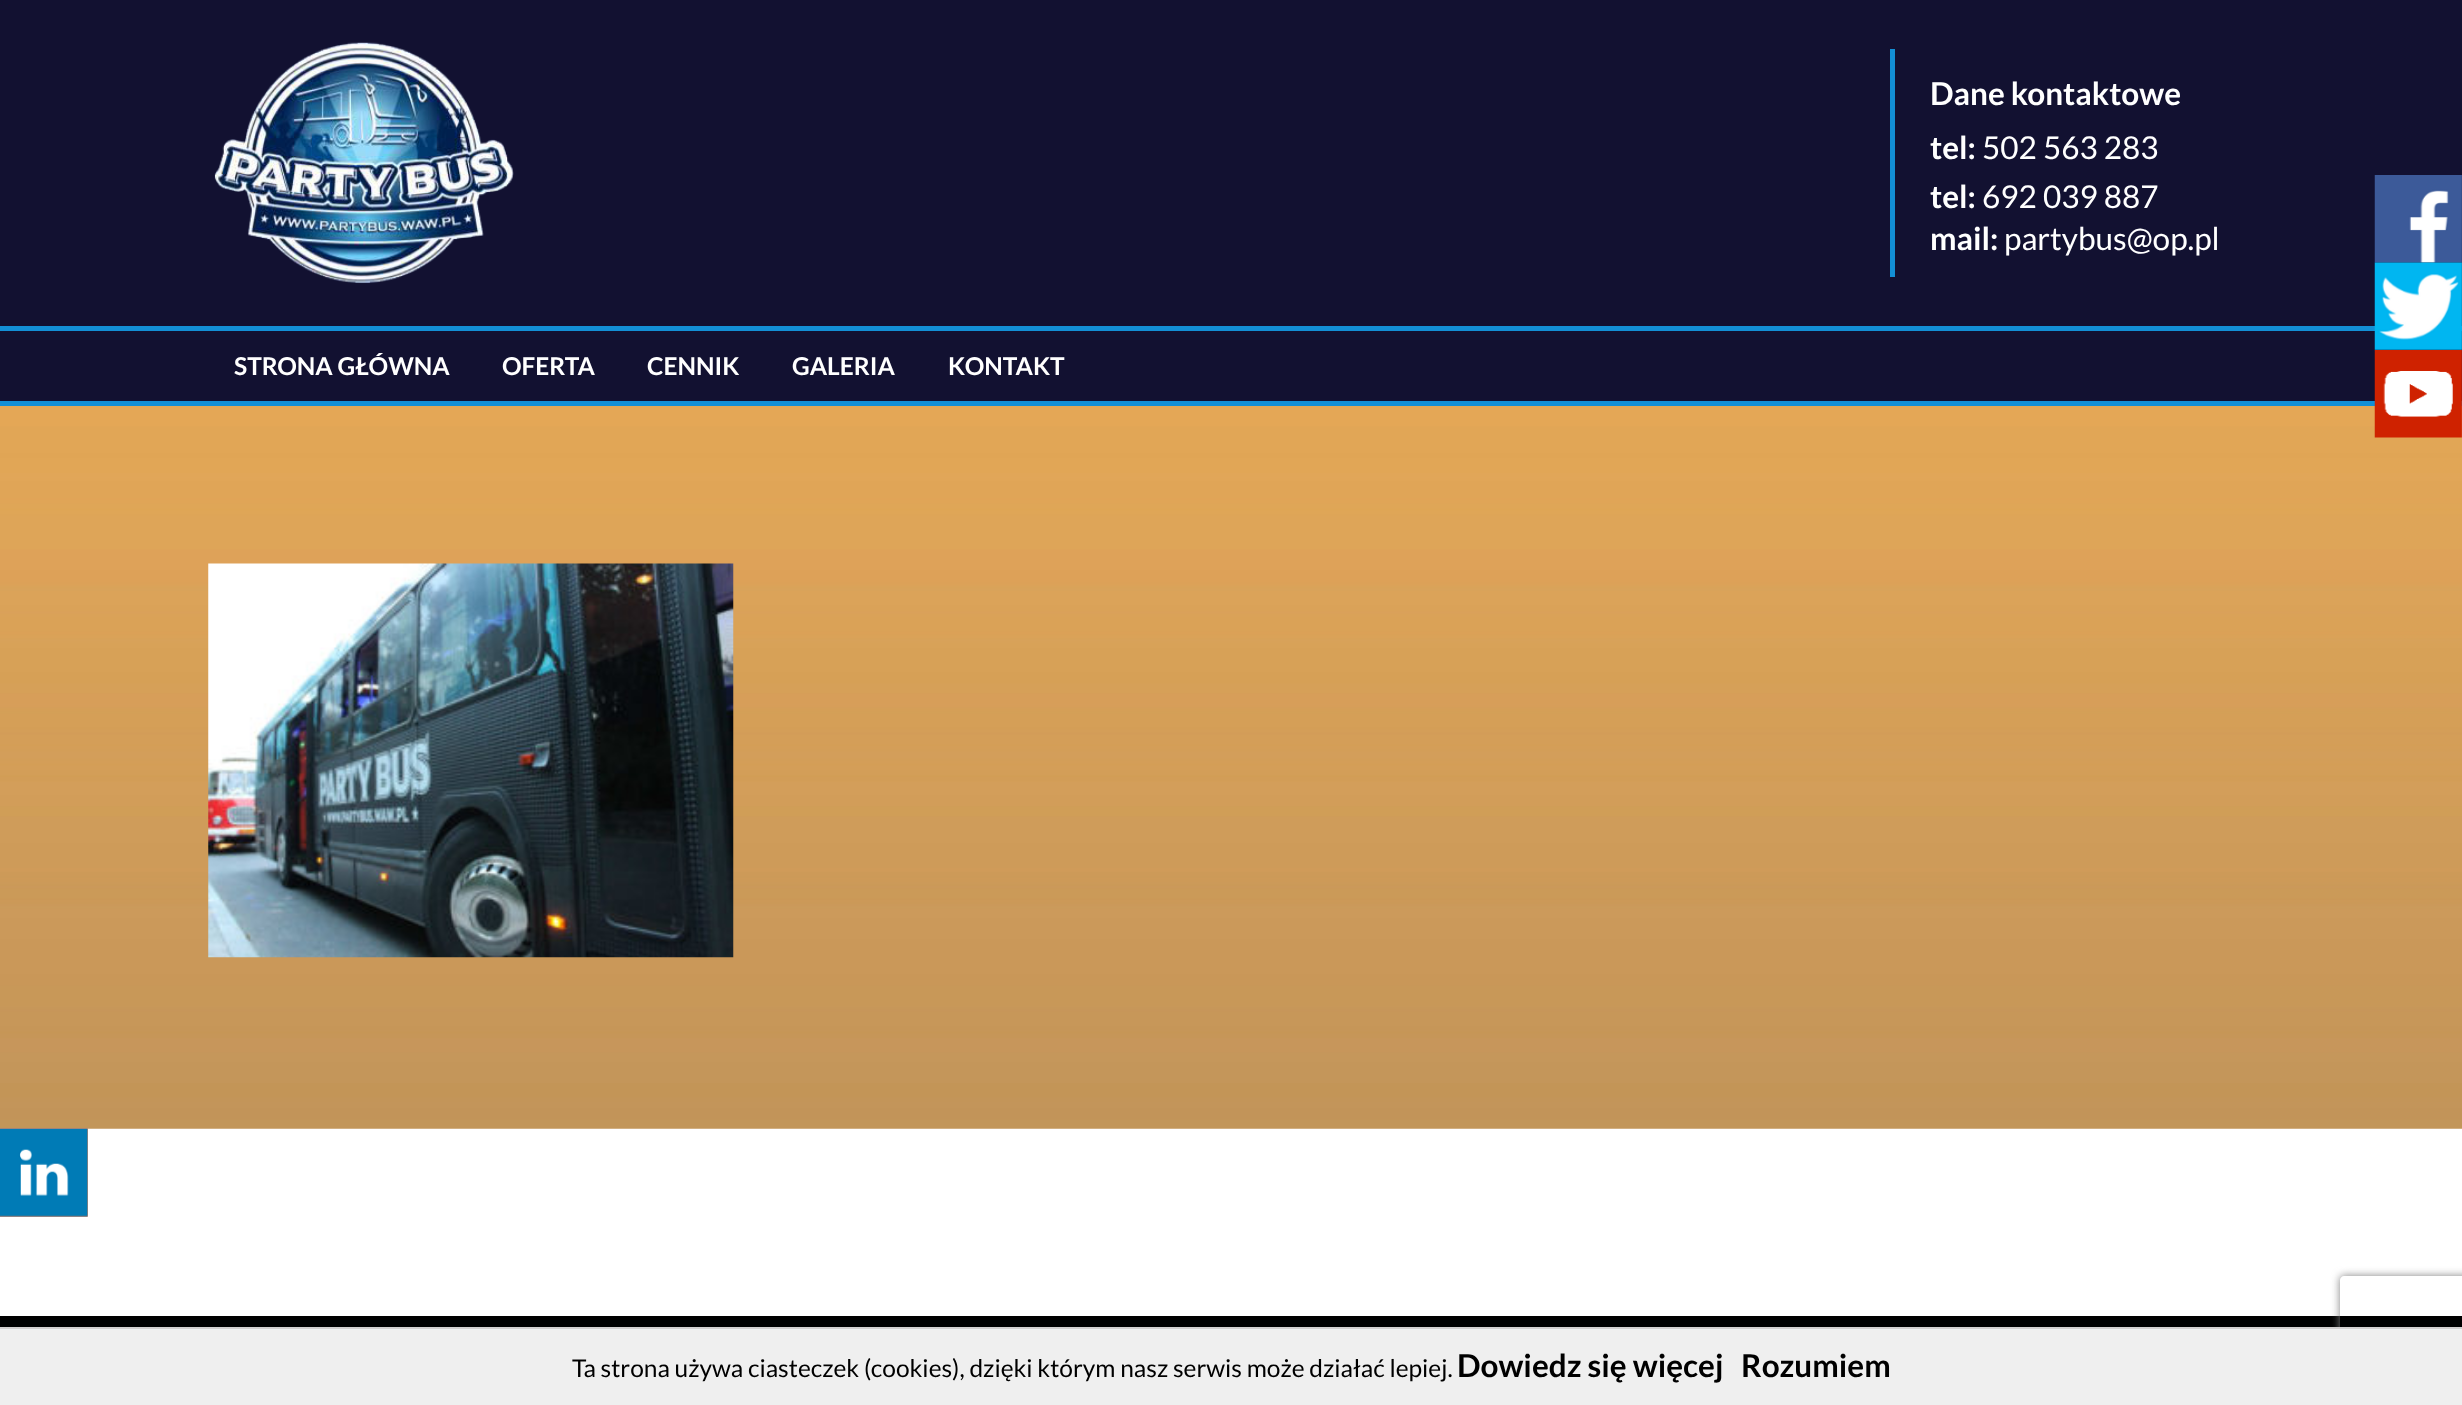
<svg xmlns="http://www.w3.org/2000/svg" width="2462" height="1405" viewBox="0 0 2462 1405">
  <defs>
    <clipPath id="clip1"><path d="M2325 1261H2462V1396H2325ZM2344 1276H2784C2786 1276 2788 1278 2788 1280V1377C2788 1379 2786 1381 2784 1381H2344C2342 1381 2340 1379 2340 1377V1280C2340 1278 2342 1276 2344 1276Z" clip-rule="evenodd"/></clipPath>
  </defs>
  <rect width="100%" height="100%" fill="#fff"/>
  <path d="M0 0h2462v401H0z" fill="#121131"/>
  <path d="M0 401h2462v5H0z" fill="#138fd5"/>
  <image x="214" y="42" width="300" height="242" href="img/1.png"/>
  <path d="M1890 49h5v228H1890z" fill="#138fd5"/>
  <path d="M0 326h2462v5H0z" fill="#138fd5"/>
  <image x="0" y="406" width="2462" height="723" href="img/2.png"/>
  <image x="208" y="563" width="526" height="395" href="img/3.png"/>
  <image x="2374" y="175" width="88" height="88" href="img/4.png"/>
  <image x="2374" y="262" width="88" height="89" href="img/5.png"/>
  <image x="2374" y="350" width="88" height="88" href="img/6.png"/>
  <image x="0" y="1128" width="88" height="89" href="img/7.png"/>
  <image x="0" y="1128" width="88" height="89" href="img/8.png"/>
  <image x="0" y="1128" width="88" height="89" href="img/9.png"/>
  <image x="0" y="1128" width="88" height="89" href="img/10.png"/>
  <image x="0" y="1128" width="88" height="89" href="img/11.png"/>
  <image x="0" y="1128" width="88" height="89" href="img/12.png"/>
  <path d="M0 1316h2462v11H0z" fill="#000"/>
  <g clip-path="url(#clip1)">
    <rect x="2340" y="1276" width="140" height="105" rx="4" fill="#808080" filter="blur(4.5px)"/>
  </g>
  <path d="M0 1329h2462v76H0z" fill="#efefef"/>
  <path d="M0 1327h2462v2H0z" fill="#d3d0d0"/>
  <g font-family="Lato" font-size="31.5" font-weight="bold" fill="#fff">
    <text x="1930" y="105">Dane kontaktowe</text>
    <text x="1930" y="159">tel:</text>
  </g>
  <text x="1982" y="159" font-family="Lato" font-size="31.5" fill="#fff">502 563 283</text>
  <text x="1930" y="208" font-family="Lato" font-size="31.5" font-weight="bold" fill="#fff">tel:</text>
  <text x="1982" y="208" font-family="Lato" font-size="31.5" fill="#fff">692 039 887</text>
  <text x="1930" y="250" font-family="Lato" font-size="31.5" font-weight="bold" fill="#fff">mail:</text>
  <text x="2004" y="250" font-family="Lato" font-size="31.5" fill="#fff">partybus@op.pl</text>
  <g font-family="Lato" font-size="24.5" font-weight="bold" fill="#fff">
    <text x="234" y="375">STRONA GŁÓWNA</text>
    <text x="502" y="375">OFERTA</text>
    <text x="647" y="375">CENNIK</text>
    <text x="792" y="375">GALERIA</text>
    <text x="948" y="375">KONTAKT</text>
  </g>
  <text x="572" y="1377" font-family="Lato" font-size="24.5" fill="#000">Ta strona używa ciasteczek (cookies), dzięki którym nasz serwis może działać lepiej.</text>
  <g font-family="Lato" font-size="31.5" font-weight="bold" fill="#000">
    <text x="1457" y="1377">Dowiedz się więcej</text>
    <text x="1741" y="1377">Rozumiem</text>
  </g>
</svg>
